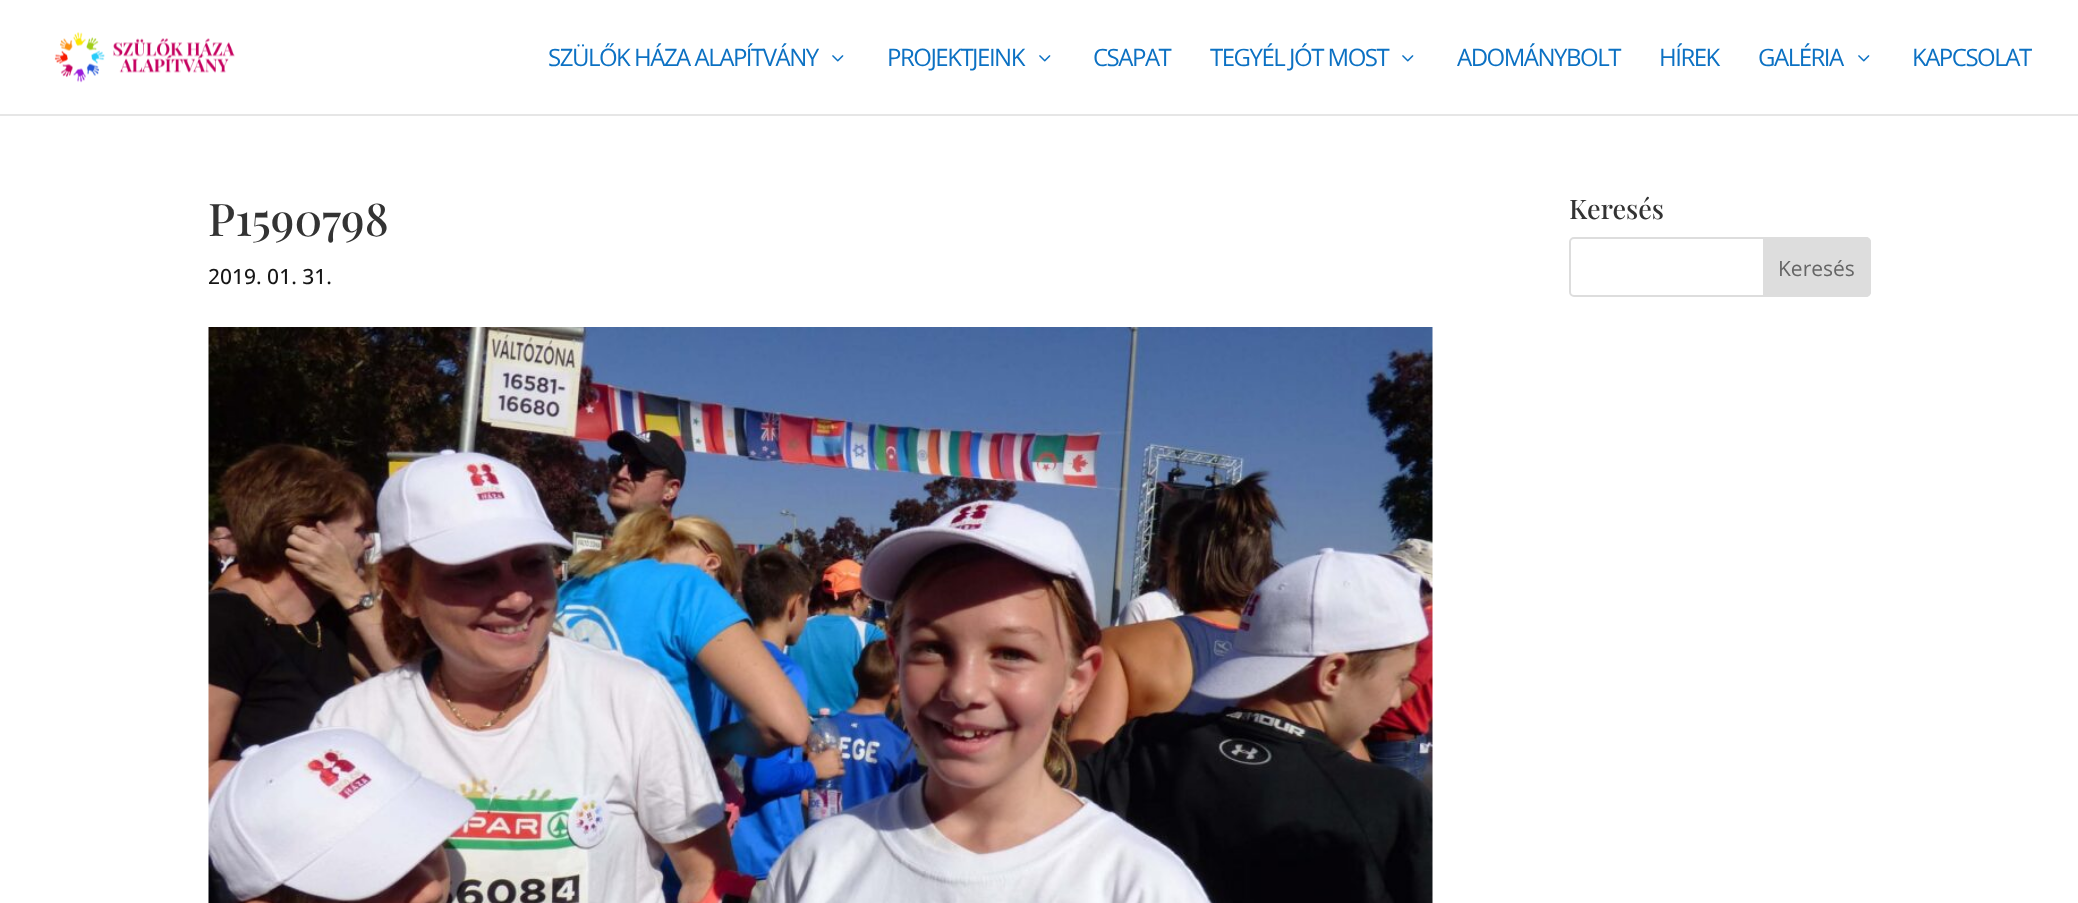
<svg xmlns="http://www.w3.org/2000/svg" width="2078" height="903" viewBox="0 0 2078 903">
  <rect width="100%" height="100%" fill="#fff"/>
  <path d="M0 114h2078v2H0z" fill="#e6e6e6"/>
  <image x="54" y="32" width="181" height="51" href="img/1.png"/>
  <image x="832" y="55" width="12" height="7" href="img/2.png"/>
  <image x="1039" y="55" width="12" height="7" href="img/2.png"/>
  <image x="1402" y="55" width="12" height="7" href="img/2.png"/>
  <image x="1858" y="55" width="12" height="7" href="img/2.png"/>
  <image x="208" y="327" width="1225" height="576" href="img/3.png"/>
  <rect x="1570" y="238" width="300" height="58" rx="4" fill="none" stroke="#ddd" stroke-width="2"/>
  <path d="M1764 238H1866C1868 238 1870 240 1870 242V292C1870 294 1868 296 1866 296H1764Z" fill="#ddd" stroke="#ddd" stroke-width="2"/>
  <g font-family="Open Sans" font-size="24" letter-spacing="-1.5" fill="#0c71c3">
    <text x="548" y="66">SZÜLŐK HÁZA ALAPÍTVÁNY</text>
    <text x="887" y="66">PROJEKTJEINK</text>
    <text x="1093" y="66">CSAPAT</text>
    <text x="1210" y="66">TEGYÉL JÓT MOST</text>
    <text x="1457" y="66">ADOMÁNYBOLT</text>
    <text x="1659" y="66">HÍREK</text>
    <text x="1758" y="66">GALÉRIA</text>
    <text x="1912" y="66">KAPCSOLAT</text>
  </g>
  <text x="208" y="236" font-family="Playfair Display" font-size="45" font-weight="500" fill="#333">P1590798</text>
  <text x="208" y="284" font-family="Open Sans" font-size="21" font-weight="500" fill="#161616">2019. 01. 31.</text>
  <text x="1569" y="219" font-family="Playfair Display" font-size="27" font-weight="500" fill="#333">Keresés</text>
  <text x="1778" y="276" font-family="Open Sans" font-size="21" fill="#666">Keresés</text>
</svg>
